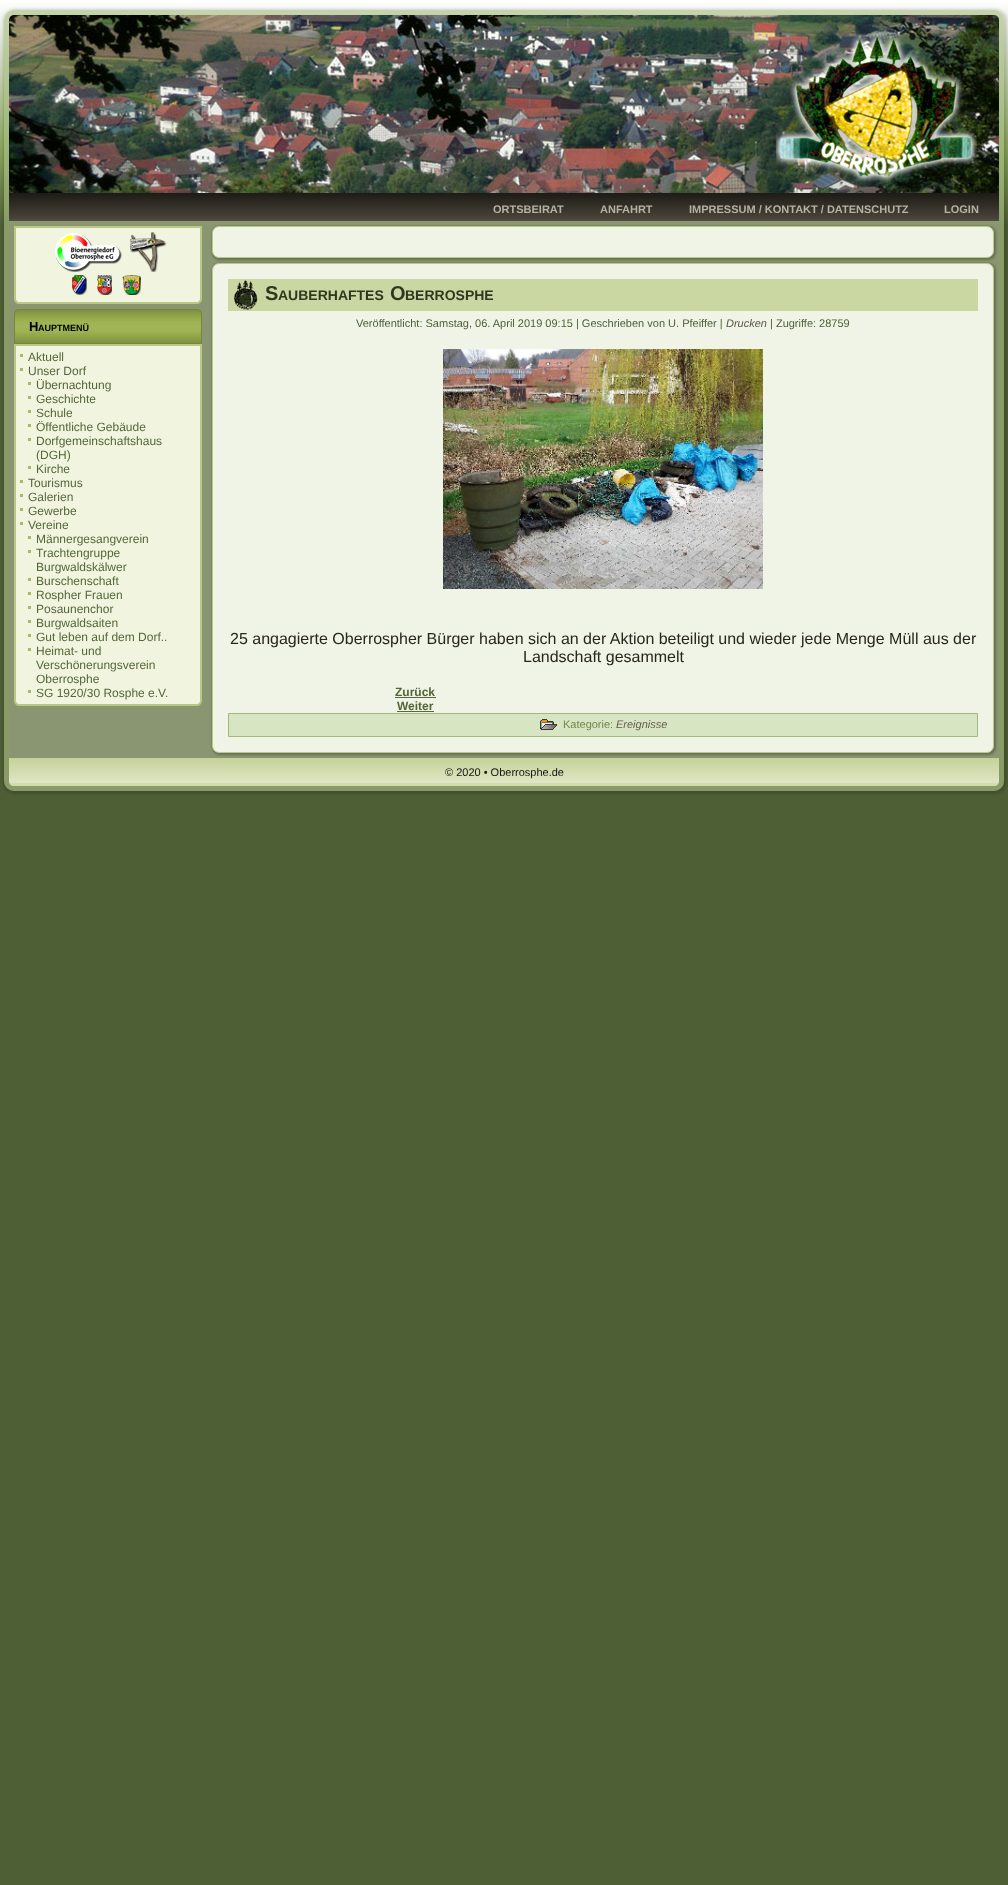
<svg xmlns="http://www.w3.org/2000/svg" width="1008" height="1885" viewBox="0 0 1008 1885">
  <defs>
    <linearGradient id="g1" gradientUnits="userSpaceOnUse" x1="504" y1="0" x2="504" y2="1885"><stop offset="0" stop-color="#fff"/><stop offset="0.08" stop-color="#88a45b"/><stop offset="0.12" stop-color="#4f5f35"/></linearGradient>
    <clipPath id="clip1"><path d="M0 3H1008V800H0ZM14 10H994C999.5 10 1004 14.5 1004 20V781C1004 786.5 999.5 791 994 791H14C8.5 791 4 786.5 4 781V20C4 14.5 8.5 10 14 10Z" clip-rule="evenodd"/></clipPath>
    <linearGradient id="g2" gradientUnits="userSpaceOnUse" x1="504" y1="193" x2="504" y2="221"><stop offset="0" stop-color="#1d1b16"/><stop offset="1" stop-color="#4d483d"/></linearGradient>
    <linearGradient id="g3" gradientUnits="userSpaceOnUse" x1="108" y1="310" x2="108" y2="343"><stop offset="0" stop-color="#809140"/><stop offset="0.33" stop-color="#9cb14e"/><stop offset="0.4" stop-color="#a0b455"/><stop offset="0.5" stop-color="#a2b658"/><stop offset="0.6" stop-color="#a0b455"/><stop offset="0.67" stop-color="#9cb14e"/><stop offset="1" stop-color="#809140"/></linearGradient>
    <linearGradient id="g4" gradientUnits="userSpaceOnUse" x1="504" y1="758" x2="504" y2="786"><stop offset="0" stop-color="#c5d298"/><stop offset="0.9" stop-color="#dfe6c6"/><stop offset="0.9" stop-color="#d1dbad"/><stop offset="1" stop-color="#d1dbad"/></linearGradient>
  </defs>
  <rect width="100%" height="100%" fill="#fff"/>
  <path d="M0 2h1008v1883H0z" fill="url(#g1)"/>
  <g clip-path="url(#clip1)">
    <rect x="3" y="9" width="1004" height="785" rx="12" fill="#00000029" filter="blur(1.5px)"/>
  </g>
  <rect x="4" y="10" width="1000" height="781" rx="10" fill="#e3e9cd66"/>
  <rect x="6.5" y="12.5" width="995" height="776" rx="7.5" fill="none" stroke="#88a45b66" stroke-width="5"/>
  <image x="9" y="15" width="990" height="178" href="img/1.png"/>
  <path d="M9 193h990v26H9z" fill="url(#g2)"/>
  <path d="M9 219h990v2H9z" fill="#504a3f"/>
  <path d="M15 227H201V299C201 301 199 303 197 303H19C17 303 15 301 15 299Z" fill="#f1f5e0" stroke="#b9c983" stroke-width="2"/>
  <image x="55" y="233" width="67" height="39" href="img/2.png"/>
  <image x="130" y="232" width="37" height="40" href="img/3.png"/>
  <image x="72" y="275" width="15" height="20" href="img/4.png"/>
  <image x="97" y="275" width="15" height="20" href="img/5.png"/>
  <image x="122" y="275" width="19" height="20" href="img/6.png"/>
  <path d="M15 310h186v33H15z" fill="url(#g3)"/>
  <path d="M19 309.5H197C199.5 309.5 201.5 311.5 201.5 314V343.5H14.5V314C14.5 311.5 16.5 309.5 19 309.5Z" fill="none" stroke="#76873b"/>
  <path d="M15 345H201V701C201 703 199 705 197 705H19C17 705 15 703 15 701Z" fill="#f1f5e0" stroke="#b9c983" stroke-width="2"/>
  <path d="M20 354h3v3H20z" fill="#a8bb63"/>
  <path d="M20 368h3v3H20z" fill="#a8bb63"/>
  <path d="M28 382h3v3H28z" fill="#a8bb63"/>
  <path d="M28 396h3v3H28z" fill="#a8bb63"/>
  <path d="M28 410h3v3H28z" fill="#a8bb63"/>
  <path d="M28 424h3v3H28z" fill="#a8bb63"/>
  <path d="M28 438h3v3H28z" fill="#a8bb63"/>
  <path d="M28 466h3v3H28z" fill="#a8bb63"/>
  <path d="M20 480h3v3H20z" fill="#a8bb63"/>
  <path d="M20 494h3v3H20z" fill="#a8bb63"/>
  <path d="M20 508h3v3H20z" fill="#a8bb63"/>
  <path d="M20 522h3v3H20z" fill="#a8bb63"/>
  <path d="M28 536h3v3H28z" fill="#a8bb63"/>
  <path d="M28 550h3v3H28z" fill="#a8bb63"/>
  <path d="M28 578h3v3H28z" fill="#a8bb63"/>
  <path d="M28 592h3v3H28z" fill="#a8bb63"/>
  <path d="M28 606h3v3H28z" fill="#a8bb63"/>
  <path d="M28 620h3v3H28z" fill="#a8bb63"/>
  <path d="M28 634h3v3H28z" fill="#a8bb63"/>
  <path d="M28 648h3v3H28z" fill="#a8bb63"/>
  <path d="M28 690h3v3H28z" fill="#a8bb63"/>
  <rect x="212" y="226" width="784" height="34" rx="8" fill="#00000040" filter="blur(1px)"/>
  <rect x="212.5" y="226.5" width="781" height="31" rx="6.5" fill="#eff4e6" stroke="#b9c983"/>
  <rect x="212" y="263" width="784" height="492" rx="8" fill="#00000040" filter="blur(1px)"/>
  <rect x="212.5" y="263.5" width="781" height="489" rx="6.5" fill="#eff4e6" stroke="#b9c983"/>
  <path d="M228 279h750v32H228z" fill="#cbd7a3"/>
  <image x="234" y="280" width="24" height="30" href="img/7.png"/>
  <image x="443" y="349" width="320" height="240" href="img/8.png"/>
  <path d="M395 697h41v1H395z" fill="#57693a"/>
  <path d="M397 711h37v1H397z" fill="#57693a"/>
  <path d="M228.5 713.5h749v23H228.5z" fill="#d8e5c3" stroke="#a2b87f"/>
  <image x="540" y="719" width="17" height="11" href="img/9.png"/>
  <path d="M9 758H999V781C999 784 997 786 994 786H14C11 786 9 784 9 781Z" fill="url(#g4)"/>
  <g font-family="Liberation Sans" font-size="11" font-weight="bold" fill="#b7b1a4">
    <text x="493" y="213">ORTSBEIRAT</text>
    <text x="600" y="213">ANFAHRT</text>
    <text x="689" y="213">IMPRESSUM / KONTAKT / DATENSCHUTZ</text>
    <text x="944" y="213">LOGIN</text>
  </g>
  <text x="29" y="331" font-family="Liberation Sans" font-size="13" font-weight="bold" fill="#000">H</text>
  <text x="38" y="331" font-family="Liberation Sans" font-size="9" font-weight="bold" fill="#000">AUPTMENÜ</text>
  <g font-family="Liberation Sans" font-size="12" fill="#546638">
    <text x="28" y="361">Aktuell</text>
    <text x="28" y="375">Unser Dorf</text>
    <text x="36" y="389">Übernachtung</text>
    <text x="36" y="403">Geschichte</text>
    <text x="36" y="417">Schule</text>
    <text x="36" y="431">Öffentliche Gebäude</text>
    <text x="36" y="445">Dorfgemeinschaftshaus</text>
    <text x="36" y="459">(DGH)</text>
    <text x="36" y="473">Kirche</text>
    <text x="28" y="487">Tourismus</text>
    <text x="28" y="501">Galerien</text>
    <text x="28" y="515">Gewerbe</text>
    <text x="28" y="529">Vereine</text>
    <text x="36" y="543">Männergesangverein</text>
    <text x="36" y="557">Trachtengruppe</text>
    <text x="36" y="571">Burgwaldskälwer</text>
    <text x="36" y="585">Burschenschaft</text>
    <text x="36" y="599">Rospher Frauen</text>
    <text x="36" y="613">Posaunenchor</text>
    <text x="36" y="627">Burgwaldsaiten</text>
    <text x="36" y="641">Gut leben auf dem Dorf..</text>
    <text x="36" y="655">Heimat- und</text>
    <text x="36" y="669">Verschönerungsverein</text>
    <text x="36" y="683">Oberrosphe</text>
    <text x="36" y="697">SG 1920/30 Rosphe e.V.</text>
  </g>
  <text x="265" y="300" font-family="Liberation Sans" font-size="20" font-weight="bold" fill="#2e381f">S</text>
  <text x="278" y="300" font-family="Liberation Sans" font-size="14" font-weight="bold" fill="#2e381f">AUBERHAFTES</text>
  <text x="390" y="300" font-family="Liberation Sans" font-size="20" font-weight="bold" fill="#2e381f">O</text>
  <text x="405" y="300" font-family="Liberation Sans" font-size="14" font-weight="bold" fill="#2e381f">BERROSPHE</text>
  <text x="356" y="327" font-family="Liberation Sans" font-size="11" fill="#4f5f35">Veröffentlicht: Samstag, 06. April 2019 09:15 | Geschrieben von U. Pfeiffer |</text>
  <text x="726" y="327" font-family="Liberation Sans" font-size="11" font-style="italic" fill="#5b5548">Drucken</text>
  <text x="770" y="327" font-family="Liberation Sans" font-size="11" fill="#4f5f35">| Zugriffe: 28759</text>
  <g font-family="Liberation Sans" font-size="16" fill="#28251f">
    <text x="230" y="644">25 angagierte Oberrospher Bürger haben sich an der Aktion beteiligt und wieder jede Menge Müll aus der</text>
    <text x="523" y="662">Landschaft gesammelt</text>
  </g>
  <g font-family="Liberation Sans" font-size="12" font-weight="bold" fill="#546638">
    <text x="395" y="696">Zurück</text>
    <text x="397" y="710">Weiter</text>
  </g>
  <text x="563" y="728" font-family="Liberation Sans" font-size="11" fill="#70874a">Kategorie:</text>
  <text x="616" y="728" font-family="Liberation Sans" font-size="11" font-style="italic" fill="#645d4f">Ereignisse</text>
  <text x="445" y="776" font-family="Liberation Sans" font-size="11" fill="#171512">© 2020 • Oberrosphe.de</text>
</svg>
